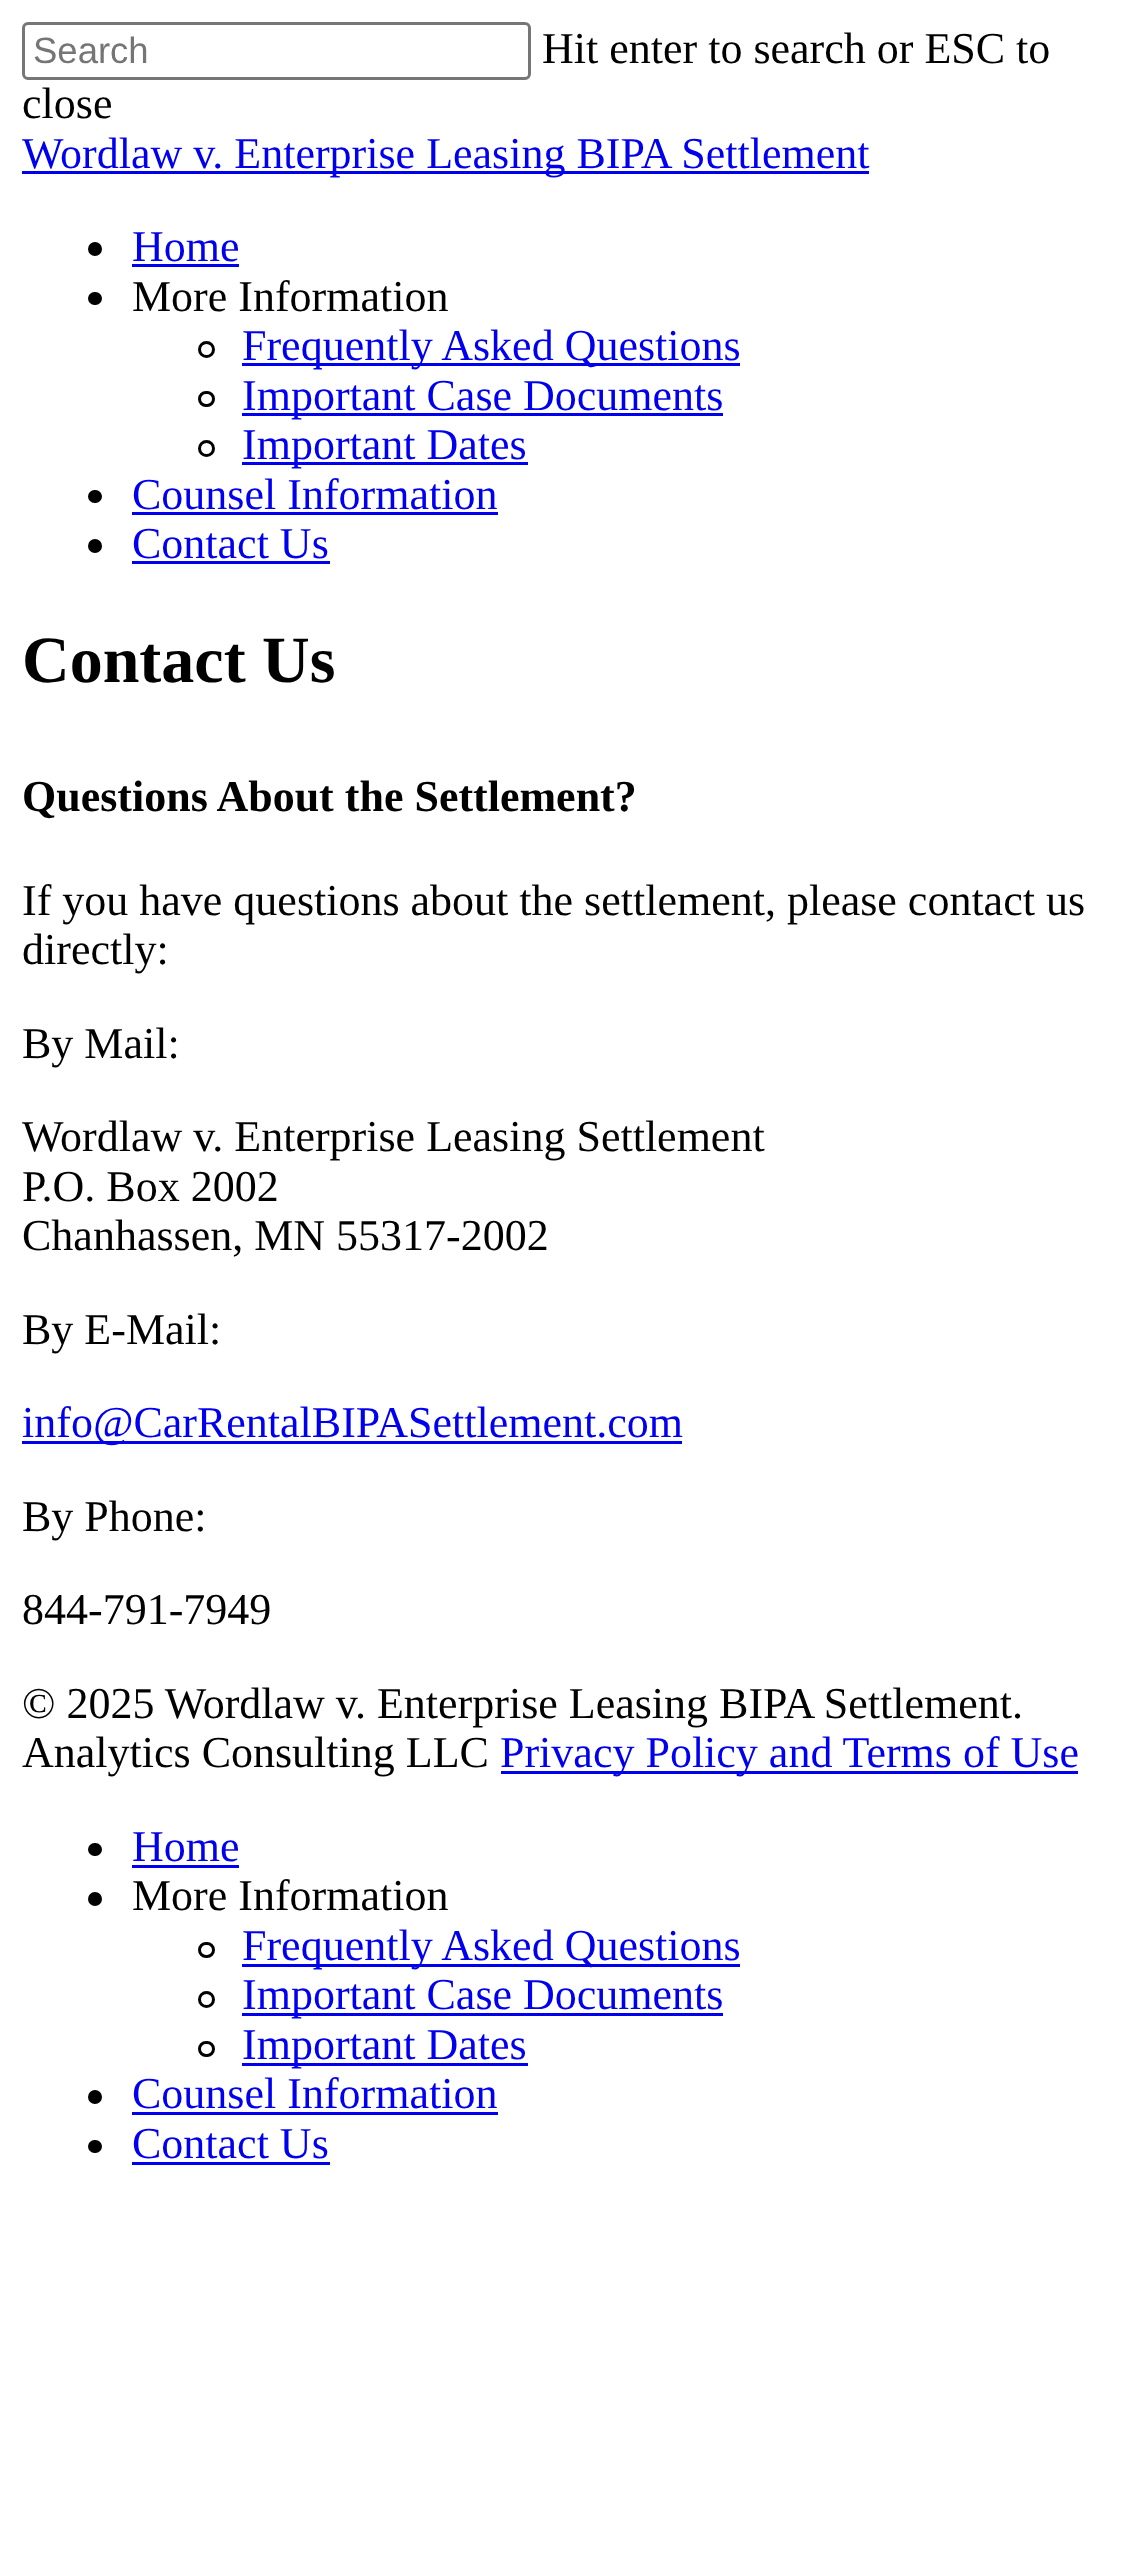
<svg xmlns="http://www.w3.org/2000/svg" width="1129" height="2573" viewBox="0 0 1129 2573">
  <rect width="100%" height="100%" fill="#fff"/>
  <rect x="23.5" y="23.5" width="506" height="55" rx="4.5" fill="none" stroke="#767676" stroke-width="3"/>
  <path d="M22 171h847v3H22z" fill="#00e"/>
  <circle cx="95" cy="249" r="7" fill="#000"/>
  <path d="M132 264h107v3H132z" fill="#00e"/>
  <rect x="88" y="292" width="14" height="13" rx="6.5" fill="#000"/>
  <circle cx="206.5" cy="349.5" r="7" fill="none" stroke="#000" stroke-width="3"/>
  <path d="M242 363h498v3H242z" fill="#00e"/>
  <rect x="199.5" y="392.5" width="14" height="13" rx="6.5" fill="none" stroke="#000" stroke-width="3"/>
  <path d="M242 413h481v3H242z" fill="#00e"/>
  <circle cx="206.5" cy="448.5" r="7" fill="none" stroke="#000" stroke-width="3"/>
  <path d="M242 462h286v3H242z" fill="#00e"/>
  <rect x="88" y="490" width="14" height="13" rx="6.5" fill="#000"/>
  <path d="M132 512h366v3H132z" fill="#00e"/>
  <circle cx="95" cy="546" r="7" fill="#000"/>
  <path d="M132 561h198v3H132z" fill="#00e"/>
  <path d="M22 1441h660v3H22z" fill="#00e"/>
  <path d="M501 1771h577v3H501z" fill="#00e"/>
  <rect x="88" y="1843" width="14" height="13" rx="6.5" fill="#000"/>
  <path d="M132 1865h107v3H132z" fill="#00e"/>
  <circle cx="95" cy="1899" r="7" fill="#000"/>
  <rect x="199.5" y="1943.5" width="14" height="13" rx="6.5" fill="none" stroke="#000" stroke-width="3"/>
  <path d="M242 1964h498v3H242z" fill="#00e"/>
  <circle cx="206.5" cy="1999.5" r="7" fill="none" stroke="#000" stroke-width="3"/>
  <path d="M242 2013h481v3H242z" fill="#00e"/>
  <rect x="199.5" y="2042.5" width="14" height="13" rx="6.5" fill="none" stroke="#000" stroke-width="3"/>
  <path d="M242 2063h286v3H242z" fill="#00e"/>
  <circle cx="95" cy="2097" r="7" fill="#000"/>
  <path d="M132 2112h366v3H132z" fill="#00e"/>
  <rect x="88" y="2140" width="14" height="13" rx="6.5" fill="#000"/>
  <path d="M132 2162h198v3H132z" fill="#00e"/>
  <text x="33" y="63" font-family="Liberation Sans" font-size="36.5" fill="#757575">Search</text>
  <g font-family="Liberation Serif" font-size="44" fill="#000">
    <text x="542" y="63">Hit enter to search or ESC to</text>
    <text x="22" y="118">close</text>
  </g>
  <g font-family="Liberation Serif" font-size="44" fill="#00e">
    <text x="22" y="168">Wordlaw v. Enterprise Leasing BIPA Settlement</text>
    <text x="132" y="261">Home</text>
  </g>
  <text x="132" y="311" font-family="Liberation Serif" font-size="44" fill="#000">More Information</text>
  <g font-family="Liberation Serif" font-size="44" fill="#00e">
    <text x="242" y="360">Frequently Asked Questions</text>
    <text x="242" y="410">Important Case Documents</text>
    <text x="242" y="459">Important Dates</text>
    <text x="132" y="509">Counsel Information</text>
    <text x="132" y="558">Contact Us</text>
  </g>
  <text x="22" y="682" font-family="Liberation Serif" font-size="66" font-weight="bold" fill="#000">Contact Us</text>
  <text x="22" y="811" font-family="Liberation Serif" font-size="44" font-weight="bold" fill="#000">Questions About the Settlement?</text>
  <g font-family="Liberation Serif" font-size="44" fill="#000">
    <text x="22" y="915">If you have questions about the settlement, please contact us</text>
    <text x="22" y="964">directly:</text>
    <text x="22" y="1058">By Mail:</text>
    <text x="22" y="1151">Wordlaw v. Enterprise Leasing Settlement</text>
    <text x="22" y="1201">P.O. Box 2002</text>
    <text x="22" y="1250">Chanhassen, MN 55317-2002</text>
    <text x="22" y="1344">By E-Mail:</text>
  </g>
  <text x="22" y="1437" font-family="Liberation Serif" font-size="44" fill="#00e">info@CarRentalBIPASettlement.com</text>
  <g font-family="Liberation Serif" font-size="44" fill="#000">
    <text x="22" y="1531">By Phone:</text>
    <text x="22" y="1624">844-791-7949</text>
    <text x="22" y="1718">© 2025 Wordlaw v. Enterprise Leasing BIPA Settlement.</text>
    <text x="22" y="1767">Analytics Consulting LLC</text>
  </g>
  <g font-family="Liberation Serif" font-size="44" fill="#00e">
    <text x="500" y="1767">Privacy Policy and Terms of Use</text>
    <text x="132" y="1861">Home</text>
  </g>
  <text x="132" y="1910" font-family="Liberation Serif" font-size="44" fill="#000">More Information</text>
  <g font-family="Liberation Serif" font-size="44" fill="#00e">
    <text x="242" y="1960">Frequently Asked Questions</text>
    <text x="242" y="2009">Important Case Documents</text>
    <text x="242" y="2059">Important Dates</text>
    <text x="132" y="2108">Counsel Information</text>
    <text x="132" y="2158">Contact Us</text>
  </g>
</svg>
